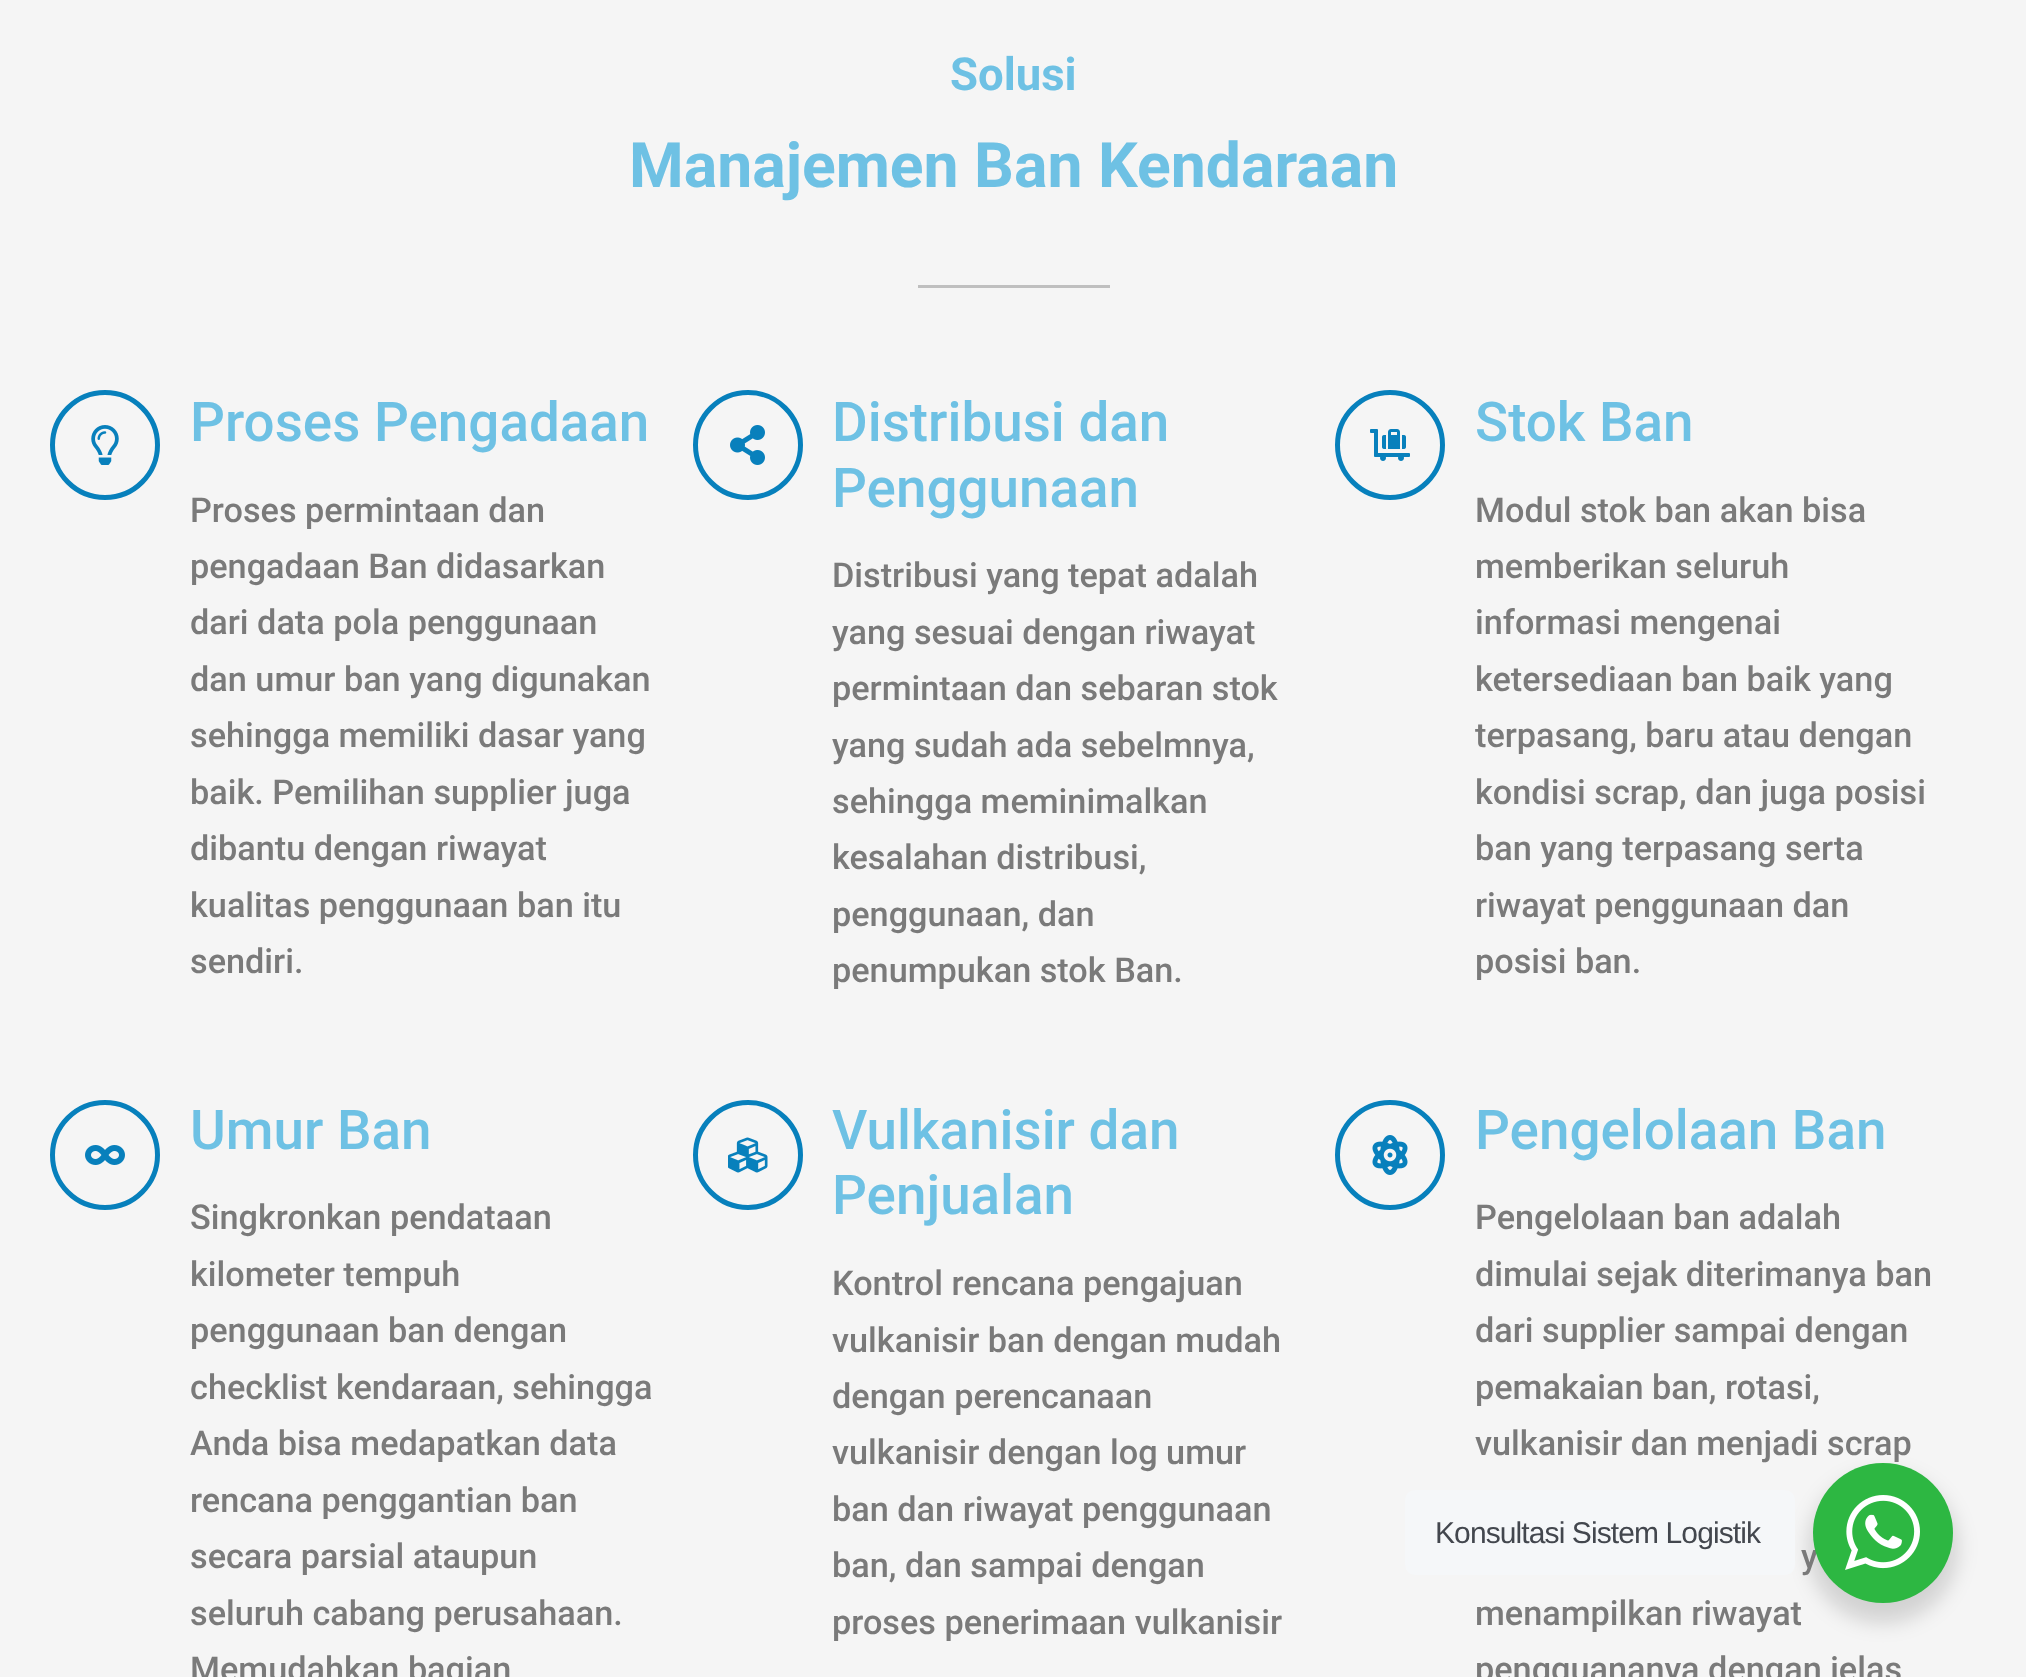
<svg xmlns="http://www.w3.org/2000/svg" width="2026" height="1677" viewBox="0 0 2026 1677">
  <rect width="100%" height="100%" fill="#f5f5f5"/>
  <path d="M918 285h192v3H918z" fill="#bfbfbf"/>
  <circle cx="105" cy="445" r="52.5" fill="none" stroke="#0780bc" stroke-width="5"/>
  <image x="91" y="425" width="28" height="40" href="img/1.png"/>
  <circle cx="748" cy="445" r="52.5" fill="none" stroke="#0780bc" stroke-width="5"/>
  <image x="730" y="425" width="35" height="40" href="img/2.png"/>
  <circle cx="1390" cy="445" r="52.5" fill="none" stroke="#0780bc" stroke-width="5"/>
  <image x="1370" y="429" width="40" height="32" href="img/3.png"/>
  <circle cx="105" cy="1155" r="52.5" fill="none" stroke="#0780bc" stroke-width="5"/>
  <image x="85" y="1145" width="40" height="20" href="img/4.png"/>
  <circle cx="748" cy="1155" r="52.5" fill="none" stroke="#0780bc" stroke-width="5"/>
  <image x="728" y="1137" width="40" height="36" href="img/5.png"/>
  <circle cx="1390" cy="1155" r="52.5" fill="none" stroke="#0780bc" stroke-width="5"/>
  <image x="1372" y="1135" width="36" height="40" href="img/6.png"/>
  <rect x="1808" y="1473" width="150" height="150" rx="75" fill="#00000024" filter="blur(10px)"/>
  <rect x="1405" y="1490" width="390" height="85" rx="10" fill="#f5f7f9"/>
  <text x="950" y="90" font-family="Roboto" font-size="45.5" font-weight="bold" fill="#6ec1e4">Solusi</text>
  <text x="629" y="187" font-family="Roboto" font-size="62.5" font-weight="bold" fill="#6ec1e4">Manajemen Ban Kendaraan</text>
  <text x="190" y="441" font-family="Roboto" font-size="54.75" font-weight="500" fill="#6ec1e4">Proses Pengadaan</text>
  <g font-family="Roboto" font-size="34.25" font-weight="500" fill="#7a7a7a">
    <text x="190" y="522">Proses permintaan dan</text>
    <text x="190" y="578">pengadaan Ban didasarkan</text>
    <text x="190" y="634">dari data pola penggunaan</text>
    <text x="190" y="691">dan umur ban yang digunakan</text>
    <text x="190" y="747">sehingga memiliki dasar yang</text>
    <text x="190" y="804">baik. Pemilihan supplier juga</text>
    <text x="190" y="860">dibantu dengan riwayat</text>
    <text x="190" y="917">kualitas penggunaan ban itu</text>
    <text x="190" y="973">sendiri.</text>
  </g>
  <g font-family="Roboto" font-size="54.75" font-weight="500" fill="#6ec1e4">
    <text x="832" y="441">Distribusi dan</text>
    <text x="832" y="507">Penggunaan</text>
  </g>
  <g font-family="Roboto" font-size="34.25" font-weight="500" fill="#7a7a7a">
    <text x="832" y="587">Distribusi yang tepat adalah</text>
    <text x="832" y="644">yang sesuai dengan riwayat</text>
    <text x="832" y="700">permintaan dan sebaran stok</text>
    <text x="832" y="757">yang sudah ada sebelmnya,</text>
    <text x="832" y="813">sehingga meminimalkan</text>
    <text x="832" y="869">kesalahan distribusi,</text>
    <text x="832" y="926">penggunaan, dan</text>
    <text x="832" y="982">penumpukan stok Ban.</text>
  </g>
  <text x="1475" y="441" font-family="Roboto" font-size="54.75" font-weight="500" fill="#6ec1e4">Stok Ban</text>
  <g font-family="Roboto" font-size="34.25" font-weight="500" fill="#7a7a7a">
    <text x="1475" y="522">Modul stok ban akan bisa</text>
    <text x="1475" y="578">memberikan seluruh</text>
    <text x="1475" y="634">informasi mengenai</text>
    <text x="1475" y="691">ketersediaan ban baik yang</text>
    <text x="1475" y="747">terpasang, baru atau dengan</text>
    <text x="1475" y="804">kondisi scrap, dan juga posisi</text>
    <text x="1475" y="860">ban yang terpasang serta</text>
    <text x="1475" y="917">riwayat penggunaan dan</text>
    <text x="1475" y="973">posisi ban.</text>
  </g>
  <text x="190" y="1149" font-family="Roboto" font-size="54.75" font-weight="500" fill="#6ec1e4">Umur Ban</text>
  <g font-family="Roboto" font-size="34.25" font-weight="500" fill="#7a7a7a">
    <text x="190" y="1229">Singkronkan pendataan</text>
    <text x="190" y="1286">kilometer tempuh</text>
    <text x="190" y="1342">penggunaan ban dengan</text>
    <text x="190" y="1399">checklist kendaraan, sehingga</text>
    <text x="190" y="1455">Anda bisa medapatkan data</text>
    <text x="190" y="1512">rencana penggantian ban</text>
    <text x="190" y="1568">secara parsial ataupun</text>
    <text x="190" y="1625">seluruh cabang perusahaan.</text>
    <text x="190" y="1681">Memudahkan bagian</text>
  </g>
  <g font-family="Roboto" font-size="54.75" font-weight="500" fill="#6ec1e4">
    <text x="832" y="1149">Vulkanisir dan</text>
    <text x="832" y="1214">Penjualan</text>
  </g>
  <g font-family="Roboto" font-size="34.25" font-weight="500" fill="#7a7a7a">
    <text x="832" y="1295">Kontrol rencana pengajuan</text>
    <text x="832" y="1352">vulkanisir ban dengan mudah</text>
    <text x="832" y="1408">dengan perencanaan</text>
    <text x="832" y="1464">vulkanisir dengan log umur</text>
    <text x="832" y="1521">ban dan riwayat penggunaan</text>
    <text x="832" y="1577">ban, dan sampai dengan</text>
    <text x="832" y="1634">proses penerimaan vulkanisir</text>
  </g>
  <text x="1475" y="1149" font-family="Roboto" font-size="54.75" font-weight="500" fill="#6ec1e4">Pengelolaan Ban</text>
  <g font-family="Roboto" font-size="34.25" font-weight="500" fill="#7a7a7a">
    <text x="1475" y="1229">Pengelolaan ban adalah</text>
    <text x="1475" y="1286">dimulai sejak diterimanya ban</text>
    <text x="1475" y="1342">dari supplier sampai dengan</text>
    <text x="1475" y="1399">pemakaian ban, rotasi,</text>
    <text x="1475" y="1455">vulkanisir dan menjadi scrap</text>
    <text x="1801" y="1568">y</text>
    <text x="1475" y="1625">menampilkan riwayat</text>
    <text x="1475" y="1681">pengguananya dengan jelas</text>
  </g>
  <text x="1435" y="1543" font-family="Liberation Sans" font-size="30" letter-spacing="-0.9" fill="#43474e">Konsultasi Sistem Logistik</text>
  <circle cx="1883" cy="1533" r="70" fill="#2db742"/>
  <image x="1845" y="1495" width="75" height="75" href="img/7.png"/>
</svg>
